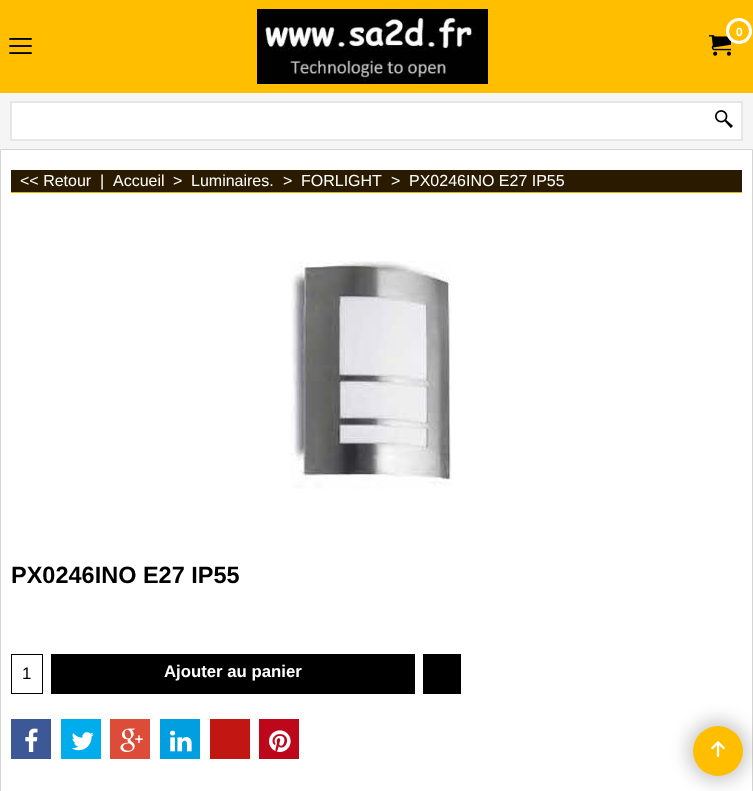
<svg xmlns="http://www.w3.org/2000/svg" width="753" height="791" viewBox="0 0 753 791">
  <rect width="100%" height="100%" fill="#fff"/>
  <path d="M0 0h753v93H0z" fill="#ffbf00"/>
  <image x="257" y="9" width="231" height="75" href="img/1.png"/>
  <image x="709" y="35" width="22" height="21" href="img/2.png"/>
  <circle cx="739" cy="31" r="11.5" fill="#ffbf00" stroke="#fff" stroke-width="3"/>
  <image x="9" y="38" width="23" height="16" href="img/3.png"/>
  <path d="M0 93h753v56H0z" fill="#f5f5f6"/>
  <path d="M11 102h731v38H11z" fill="#fff" stroke="#e6e6e6" stroke-width="2"/>
  <image x="715" y="110" width="18" height="18" href="img/4.png"/>
  <path d="M0.5 149.5h752v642H0.5z" fill="none" stroke="#d4d4d4"/>
  <path d="M11 170h731v22H11z" fill="#2a1a00"/>
  <path d="M11 192h731v1H11z" fill="#d4b900"/>
  <image x="290" y="261" width="162" height="228" href="img/5.png"/>
  <path d="M11 654h32v40H11z" fill="#000"/>
  <path d="M12 655h30v38H12z" fill="#fff"/>
  <path d="M51 654h364v40H51z" fill="#000"/>
  <path d="M423 654h38v40H423z" fill="#000"/>
  <path d="M11 719h40v40H11z" fill="#3c5897"/>
  <image x="25" y="728" width="13" height="24" href="img/6.png"/>
  <path d="M61 719h40v40H61z" fill="#00adec"/>
  <image x="71" y="732" width="23" height="19" href="img/7.png"/>
  <path d="M110 719h40v40H110z" fill="#dd4c39"/>
  <image x="120" y="728" width="23" height="24" href="img/8.png"/>
  <path d="M160 719h40v40H160z" fill="#019fe0"/>
  <image x="170" y="730" width="22" height="22" href="img/9.png"/>
  <path d="M210 719h40v40H210z" fill="#c21613"/>
  <path d="M259 719h40v40H259z" fill="#bd081c"/>
  <image x="269" y="730" width="22" height="22" href="img/10.png"/>
  <rect x="687" y="720" width="62" height="62" rx="31" fill="#00000033" filter="blur(8.5px)"/>
  <circle cx="718" cy="751" r="25" fill="#ffbf00"/>
  <image x="711" y="741" width="14" height="16" href="img/11.png"/>
  <text x="736" y="36" font-family="Liberation Sans" font-size="12" font-weight="bold" fill="#fff">0</text>
  <g font-family="Liberation Sans" font-size="16" fill="#fff">
    <text x="20" y="186">&lt;&lt; Retour</text>
    <text x="100" y="186">|</text>
    <text x="113" y="186">Accueil</text>
    <text x="173" y="186">&gt;</text>
    <text x="191" y="186">Luminaires.</text>
    <text x="283" y="186">&gt;</text>
    <text x="301" y="186">FORLIGHT</text>
    <text x="391" y="186">&gt;</text>
    <text x="409" y="186">PX0246INO E27 IP55</text>
  </g>
  <text x="11" y="583" font-family="Liberation Sans" font-size="23.5" font-weight="bold" fill="#000">PX0246INO E27 IP55</text>
  <text x="22" y="679" font-family="Liberation Sans" font-size="16.75" fill="#000">1</text>
  <text x="164" y="677" font-family="Liberation Sans" font-size="16.75" font-weight="bold" fill="#fff">Ajouter au panier</text>
</svg>
